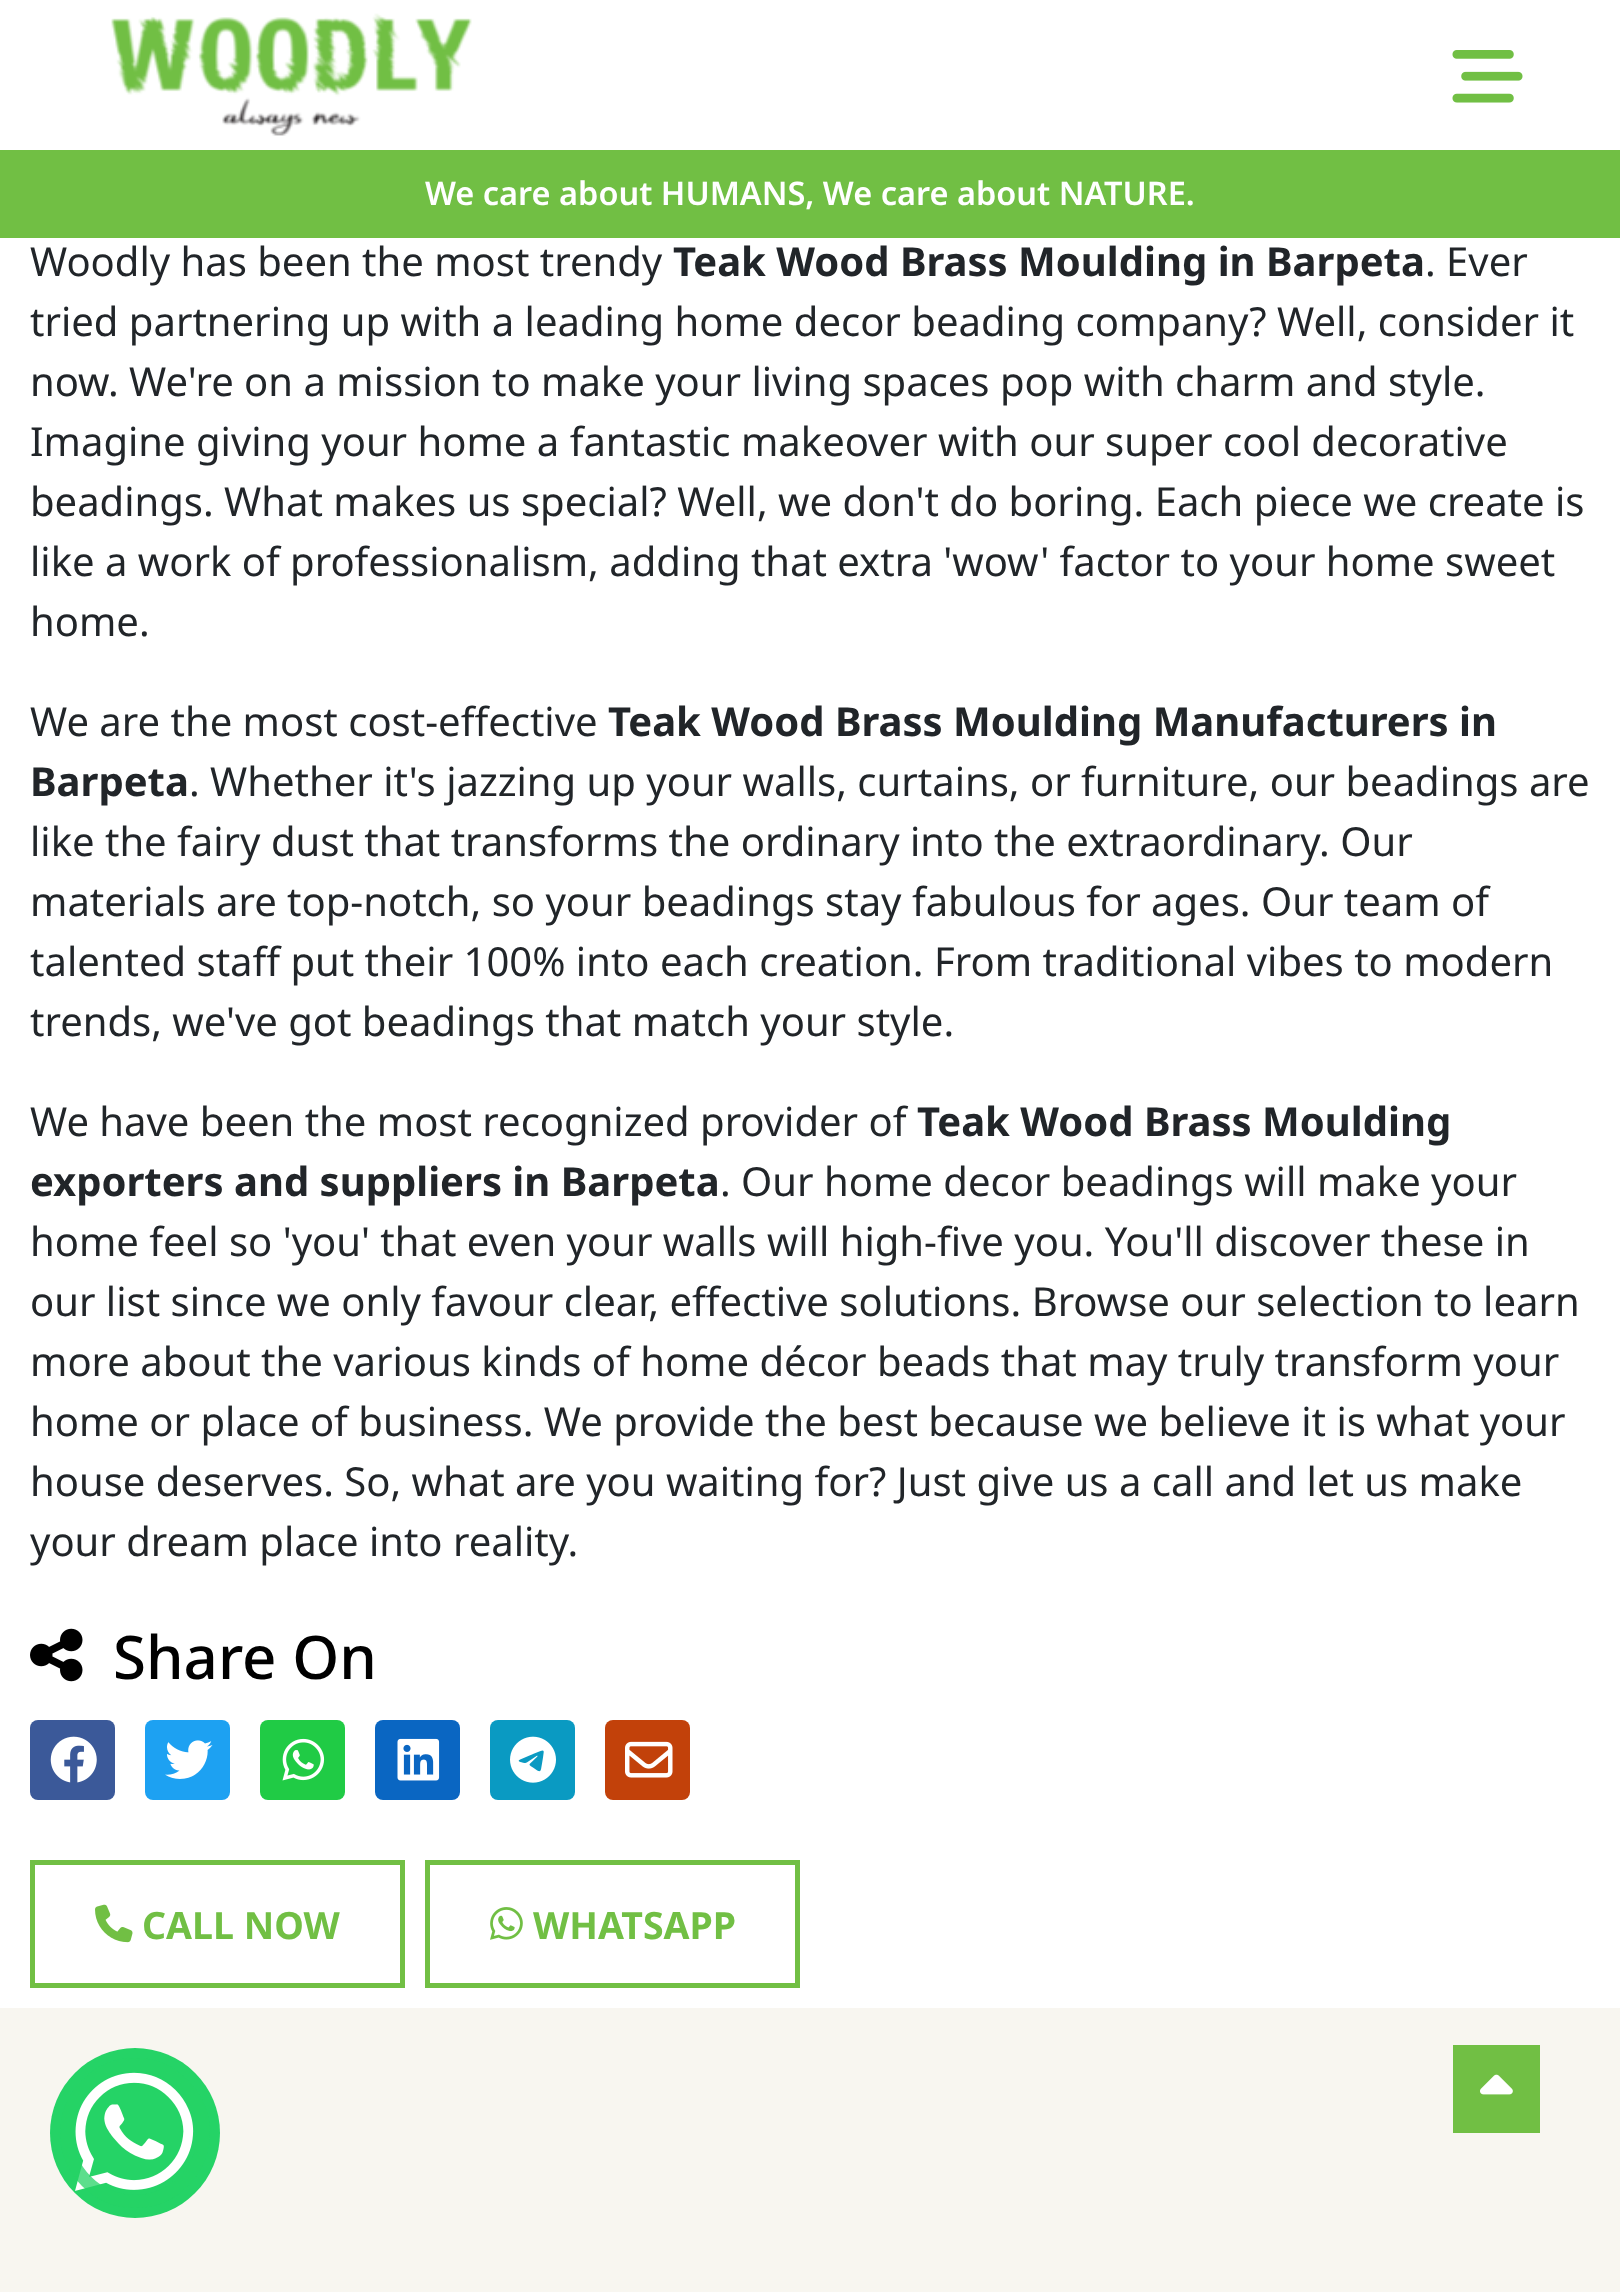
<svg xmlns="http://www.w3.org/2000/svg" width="1620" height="2292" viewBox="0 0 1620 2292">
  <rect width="100%" height="100%" fill="#fff"/>
  <image x="111" y="13" width="361" height="123" href="img/1.png"/>
  <image x="1452" y="50" width="71" height="53" href="img/2.png"/>
  <path d="M0 150h1620v88H0z" fill="#71bf44"/>
  <image x="30" y="1628" width="53" height="54" href="img/3.png"/>
  <rect x="30" y="1720" width="85" height="80" rx="8" fill="#3b5999"/>
  <image x="50" y="1736" width="47" height="47" href="img/4.png"/>
  <rect x="145" y="1720" width="85" height="80" rx="8" fill="#1da1f2"/>
  <image x="165" y="1740" width="48" height="39" href="img/5.png"/>
  <rect x="260" y="1720" width="85" height="80" rx="8" fill="#20cb45"/>
  <image x="282" y="1738" width="43" height="43" href="img/6.png"/>
  <rect x="375" y="1720" width="85" height="80" rx="8" fill="#0a66c2"/>
  <image x="397" y="1738" width="43" height="43" href="img/7.png"/>
  <rect x="490" y="1720" width="85" height="80" rx="8" fill="#0a9ac2"/>
  <image x="510" y="1736" width="46" height="47" href="img/8.png"/>
  <rect x="605" y="1720" width="85" height="80" rx="8" fill="#c2410a"/>
  <image x="625" y="1741" width="48" height="37" href="img/9.png"/>
  <path d="M32.5 1862.5h370v123H32.5z" fill="none" stroke="#71bf44" stroke-width="5"/>
  <image x="95" y="1904" width="38" height="39" href="img/10.png"/>
  <path d="M427.5 1862.5h370v123H427.5z" fill="none" stroke="#71bf44" stroke-width="5"/>
  <image x="490" y="1907" width="33" height="33" href="img/11.png"/>
  <path d="M0 2008h1620v284H0z" fill="#f8f6f0"/>
  <circle cx="135" cy="2133" r="85" fill="#25d366"/>
  <image x="75" y="2072" width="119" height="119" href="img/12.png"/>
  <circle cx="135" cy="2133" r="68.5" fill="none" stroke="#25d366bf" stroke-width="13"/>
  <path d="M1453 2045h87v88H1453z" fill="#71bf44"/>
  <image x="1480" y="2074" width="33" height="21" href="img/13.png"/>
  <text x="425" y="205" font-family="Noto Sans" font-size="32.5" font-weight="600" fill="#fff">We care about HUMANS, We care about NATURE.</text>
  <text x="30" y="276" font-family="Noto Sans" font-size="40" fill="#212529">Woodly has been the most trendy</text>
  <text x="673" y="276" font-family="Noto Sans" font-size="40" font-weight="bold" fill="#212529">Teak Wood Brass Moulding in Barpeta</text>
  <g font-family="Noto Sans" font-size="40" fill="#212529">
    <text x="1425" y="276">. Ever</text>
    <text x="30" y="336">tried partnering up with a leading home decor beading company? Well, consider it</text>
    <text x="30" y="396">now. We're on a mission to make your living spaces pop with charm and style.</text>
    <text x="30" y="456">Imagine giving your home a fantastic makeover with our super cool decorative</text>
    <text x="30" y="516">beadings. What makes us special? Well, we don't do boring. Each piece we create is</text>
    <text x="30" y="576">like a work of professionalism, adding that extra 'wow' factor to your home sweet</text>
    <text x="30" y="636">home.</text>
    <text x="30" y="736">We are the most cost-effective</text>
  </g>
  <g font-family="Noto Sans" font-size="40" font-weight="bold" fill="#212529">
    <text x="608" y="736">Teak Wood Brass Moulding Manufacturers in</text>
    <text x="30" y="796">Barpeta</text>
  </g>
  <g font-family="Noto Sans" font-size="40" fill="#212529">
    <text x="189" y="796">. Whether it's jazzing up your walls, curtains, or furniture, our beadings are</text>
    <text x="30" y="856">like the fairy dust that transforms the ordinary into the extraordinary. Our</text>
    <text x="30" y="916">materials are top-notch, so your beadings stay fabulous for ages. Our team of</text>
    <text x="30" y="976">talented staff put their 100% into each creation. From traditional vibes to modern</text>
    <text x="30" y="1036">trends, we've got beadings that match your style.</text>
    <text x="30" y="1136">We have been the most recognized provider of</text>
  </g>
  <g font-family="Noto Sans" font-size="40" font-weight="bold" fill="#212529">
    <text x="917" y="1136">Teak Wood Brass Moulding</text>
    <text x="30" y="1196">exporters and suppliers in Barpeta</text>
  </g>
  <g font-family="Noto Sans" font-size="40" fill="#212529">
    <text x="720" y="1196">. Our home decor beadings will make your</text>
    <text x="30" y="1256">home feel so 'you' that even your walls will high-five you. You'll discover these in</text>
    <text x="30" y="1316">our list since we only favour clear, effective solutions. Browse our selection to learn</text>
    <text x="30" y="1376">more about the various kinds of home décor beads that may truly transform your</text>
    <text x="30" y="1436">home or place of business. We provide the best because we believe it is what your</text>
    <text x="30" y="1496">house deserves. So, what are you waiting for? Just give us a call and let us make</text>
    <text x="30" y="1556">your dream place into reality.</text>
  </g>
  <text x="113" y="1679" font-family="Noto Sans" font-size="60" font-weight="500" fill="#000">Share On</text>
  <g font-family="Noto Sans" font-size="37.5" font-weight="bold" fill="#71bf44">
    <text x="142" y="1939">CALL NOW</text>
    <text x="533" y="1939">WHATSAPP</text>
  </g>
</svg>
